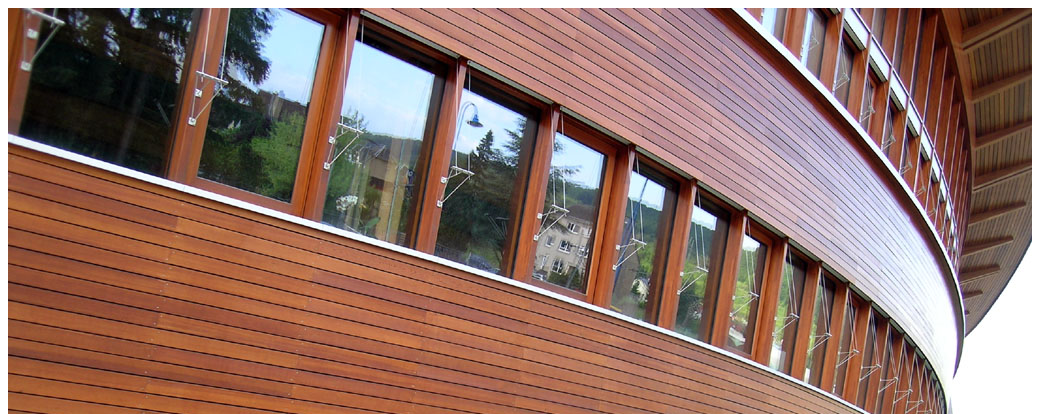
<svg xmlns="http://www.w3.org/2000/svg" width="1047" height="414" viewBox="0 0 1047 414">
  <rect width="100%" height="100%" fill="#fff"/>
  <image x="8" y="8" width="1024" height="406" href="img/1.png"/>
</svg>
